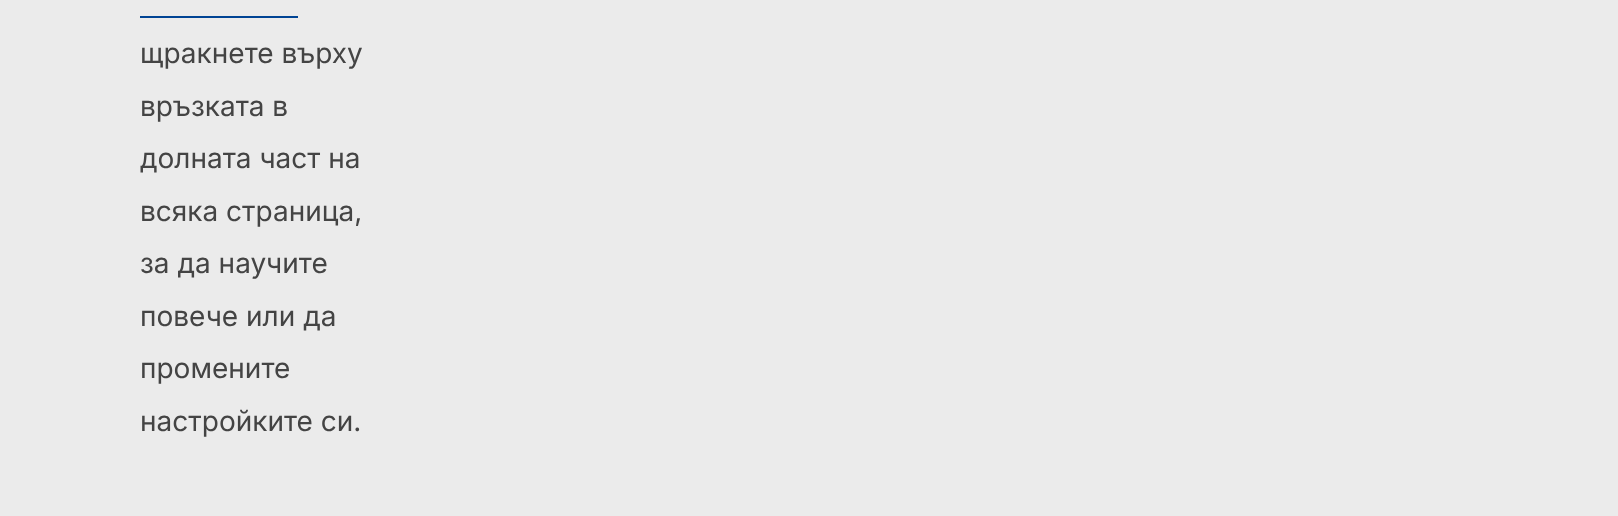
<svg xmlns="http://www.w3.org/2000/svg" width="1618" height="516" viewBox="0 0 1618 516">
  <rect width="100%" height="100%" fill="#ebebeb"/>
  <path d="M140 16h158v2H140z" fill="#004494"/>
  <g font-family="Inter" font-size="28" fill="#444">
    <text x="140" y="63">щракнете върху</text>
    <text x="140" y="116">връзката в</text>
    <text x="140" y="168">долната част на</text>
    <text x="140" y="221">всяка страница,</text>
    <text x="140" y="273">за да научите</text>
    <text x="140" y="326">повече или да</text>
    <text x="140" y="378">промените</text>
    <text x="140" y="431">настройките си.</text>
  </g>
</svg>
